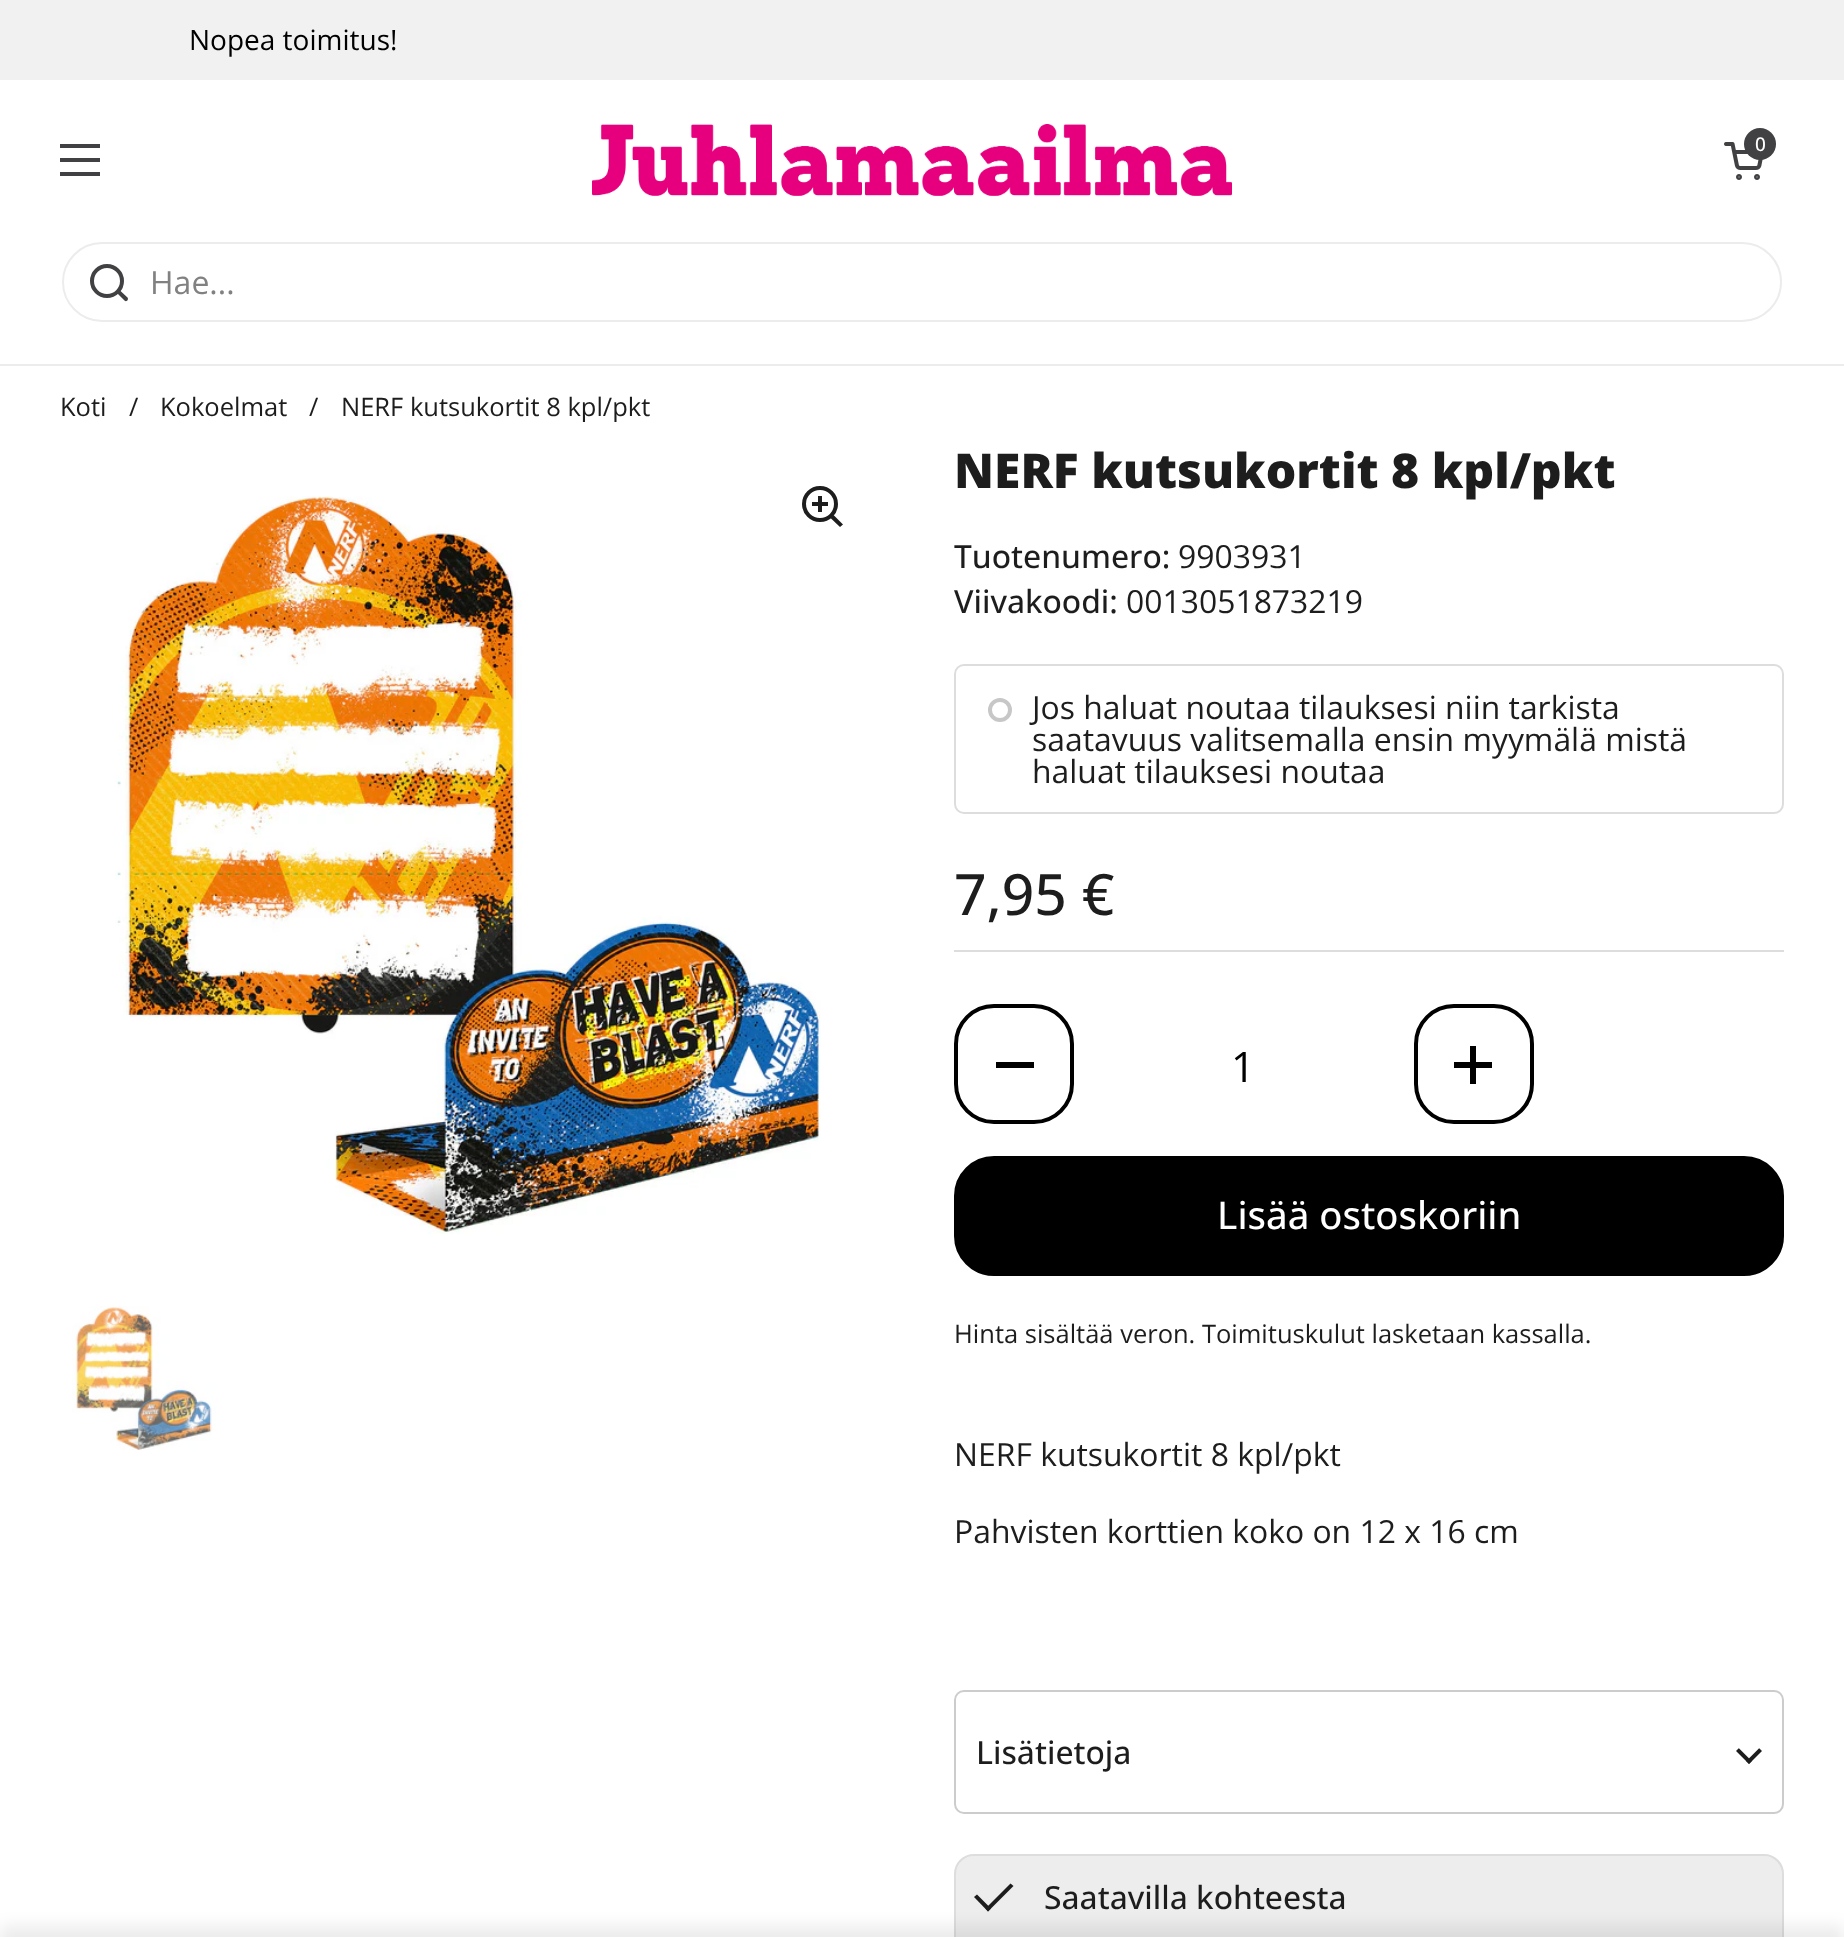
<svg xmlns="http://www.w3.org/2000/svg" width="1844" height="1937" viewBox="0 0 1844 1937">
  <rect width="100%" height="100%" fill="#fff"/>
  <path d="M0 0h1844v80H0z" fill="#f1f1f1"/>
  <path d="M60 144h40v4H60z" fill="#414042"/>
  <path d="M60 158h40v4H60z" fill="#414042"/>
  <path d="M60 172h40v4H60z" fill="#414042"/>
  <image x="592" y="124" width="640" height="72" href="img/1.png"/>
  <image x="1724" y="142" width="39" height="38" href="img/2.png"/>
  <circle cx="1760" cy="144" r="16" fill="#414042"/>
  <path d="M0 364h1844v2H0z" fill="#ececec"/>
  <rect x="63" y="243" width="1718" height="78" rx="39" fill="none" stroke="#ececec" stroke-width="2"/>
  <circle cx="107" cy="281" r="15" fill="none" stroke="#414042" stroke-width="4"/>
  <path d="M120 290.5L119 289L116 292L117.5 293.5ZM124.5 300.5C126.5 302.5 129 299.5 127.5 297.5ZM117.5 293.5L124.5 300.5L127.5 297.5L120 290.5Z" fill="#414042"/>
  <image x="115" y="496" width="706" height="738" href="img/3.png"/>
  <circle cx="820" cy="504" r="16" fill="none" stroke="#1d1d1d" stroke-width="4"/>
  <path d="M818 496h4v16H818z" fill="#1d1d1d"/>
  <path d="M812 502h16v4H812z" fill="#1d1d1d"/>
  <path d="M830.5 518L833.5 515L843 524.5L840 527Z" fill="#1d1d1d"/>
  <image x="72" y="1306" width="144" height="144" href="img/4.png"/>
  <rect x="955" y="665" width="828" height="148" rx="9" fill="none" stroke="#ddd" stroke-width="2"/>
  <circle cx="1000" cy="710" r="10" fill="none" stroke="#c7c7c7" stroke-width="4"/>
  <path d="M954 950h830v2H954z" fill="#ddd"/>
  <rect x="956" y="1006" width="116" height="116" rx="38" fill="none" stroke="#000" stroke-width="4"/>
  <path d="M996 1062h38v6H996z" fill="#000"/>
  <rect x="1416" y="1006" width="116" height="116" rx="38" fill="none" stroke="#000" stroke-width="4"/>
  <path d="M1470 1046h6v38H1470z" fill="#000"/>
  <path d="M1454 1062h38v6H1454z" fill="#000"/>
  <rect x="956" y="1158" width="826" height="116" rx="38" fill="#000" stroke="#000" stroke-width="4"/>
  <rect x="955" y="1691" width="828" height="122" rx="9" fill="none" stroke="#ccc" stroke-width="2"/>
  <image x="1736" y="1748" width="26" height="16" href="img/5.png"/>
  <rect x="955" y="1855" width="828" height="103" rx="19" fill="none" stroke="#ddd" stroke-width="2"/>
  <path d="M974 1856H1764C1774 1856 1782 1864 1782 1874V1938H956V1874C956 1864 964 1856 974 1856Z" fill="#1d1d1d14"/>
  <path d="M974 1897L977 1894.5L991 1908.5L988 1911.5Z" fill="#1d1d1d"/>
  <path d="M1010.5 1883.5L1013.5 1886L988 1911.5L985.5 1908.5Z" fill="#1d1d1d"/>
  <path d="M0 1926h1844v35H0z" fill="#00000014" filter="blur(8px)"/>
  <text x="189" y="50" font-family="Open Sans" font-size="28" fill="#000">Nopea toimitus!</text>
  <text x="1755" y="151" font-family="Open Sans" font-size="19" font-weight="500" fill="#fff">0</text>
  <text x="150" y="294" font-family="Open Sans" font-size="32" fill="#828182">Hae...</text>
  <g font-family="Open Sans" font-size="25.5" fill="#1d1d1d">
    <text x="60" y="416">Koti</text>
    <text x="129" y="416">/</text>
    <text x="160" y="416">Kokoelmat</text>
    <text x="309" y="416">/</text>
    <text x="341" y="416">NERF kutsukortit 8 kpl/pkt</text>
  </g>
  <text x="954" y="488" font-family="Open Sans" font-size="48" font-weight="800" fill="#1d1d1d">NERF kutsukortit 8 kpl/pkt</text>
  <text x="954" y="568" font-family="Open Sans" font-size="31.9" font-weight="500" fill="#1d1d1d">Tuotenumero:</text>
  <text x="1178" y="568" font-family="Open Sans" font-size="31.9" fill="#1d1d1d">9903931</text>
  <text x="954" y="613" font-family="Open Sans" font-size="31.9" font-weight="500" fill="#1d1d1d">Viivakoodi:</text>
  <g font-family="Open Sans" font-size="31.9" fill="#1d1d1d">
    <text x="1126" y="613">0013051873219</text>
    <text x="1032" y="719">Jos haluat noutaa tilauksesi niin tarkista</text>
    <text x="1032" y="751">saatavuus valitsemalla ensin myymälä mistä</text>
    <text x="1032" y="783">haluat tilauksesi noutaa</text>
  </g>
  <text x="954" y="915" font-family="Open Sans" font-size="57" font-weight="500" fill="#1d1d1d">7,95 €</text>
  <text x="1231" y="1082" font-family="Open Sans" font-size="42" fill="#000">1</text>
  <text x="1217" y="1229" font-family="Open Sans" font-size="38.25" font-weight="500" fill="#fff">Lisää ostoskoriin</text>
  <text x="954" y="1343" font-family="Open Sans" font-size="25.5" fill="#1d1d1d">Hinta sisältää veron. Toimituskulut lasketaan kassalla.</text>
  <g font-family="Open Sans" font-size="31.9" fill="#1d1d1d">
    <text x="954" y="1466">NERF kutsukortit 8 kpl/pkt</text>
    <text x="954" y="1543">Pahvisten korttien koko on 12 x 16 cm</text>
  </g>
  <g font-family="Open Sans" font-size="31.9" font-weight="500" fill="#1d1d1d">
    <text x="976" y="1764">Lisätietoja</text>
    <text x="1044" y="1909">Saatavilla kohteesta</text>
  </g>
</svg>
